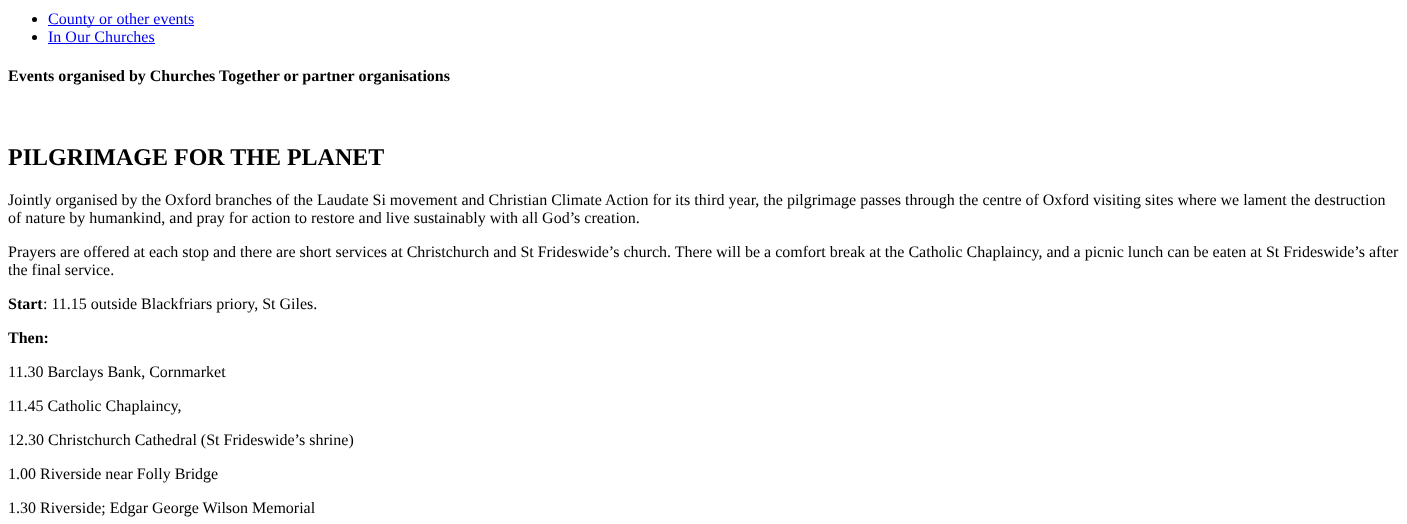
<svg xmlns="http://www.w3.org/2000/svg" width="1407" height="524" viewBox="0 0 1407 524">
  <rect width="100%" height="100%" fill="#fff"/>
  <circle cx="34.5" cy="19.5" r="2.5" fill="#000"/>
  <path d="M48 25h146v1H48z" fill="#00e"/>
  <circle cx="34.5" cy="37.5" r="2.5" fill="#000"/>
  <path d="M48 43h107v1H48z" fill="#00e"/>
  <g font-family="Liberation Serif" font-size="16" fill="#00e">
    <text x="48" y="24">County or other events</text>
    <text x="48" y="42">In Our Churches</text>
  </g>
  <text x="8" y="81" font-family="Liberation Serif" font-size="16" font-weight="bold" fill="#000">Events organised by Churches Together or partner organisations</text>
  <text x="8" y="165" font-family="Liberation Serif" font-size="24" font-weight="bold" fill="#000">PILGRIMAGE FOR THE PLANET</text>
  <g font-family="Liberation Serif" font-size="16" fill="#000">
    <text x="8" y="205">Jointly organised by the Oxford branches of the Laudate Si movement and Christian Climate Action for its third year, the pilgrimage passes through the centre of Oxford visiting sites where we lament the destruction</text>
    <text x="8" y="223">of nature by humankind, and pray for action to restore and live sustainably with all God’s creation.</text>
    <text x="8" y="257">Prayers are offered at each stop and there are short services at Christchurch and St Frideswide’s church. There will be a comfort break at the Catholic Chaplaincy, and a picnic lunch can be eaten at St Frideswide’s after</text>
    <text x="8" y="275">the final service.</text>
  </g>
  <text x="8" y="309" font-family="Liberation Serif" font-size="16" font-weight="bold" fill="#000">Start</text>
  <text x="43" y="309" font-family="Liberation Serif" font-size="16" fill="#000">: 11.15 outside Blackfriars priory, St Giles.</text>
  <text x="8" y="343" font-family="Liberation Serif" font-size="16" font-weight="bold" fill="#000">Then:</text>
  <g font-family="Liberation Serif" font-size="16" fill="#000">
    <text x="8" y="377">11.30 Barclays Bank, Cornmarket</text>
    <text x="8" y="411">11.45 Catholic Chaplaincy,</text>
    <text x="8" y="445">12.30 Christchurch Cathedral (St Frideswide’s shrine)</text>
    <text x="8" y="479">1.00 Riverside near Folly Bridge</text>
    <text x="8" y="513">1.30 Riverside; Edgar George Wilson Memorial</text>
  </g>
</svg>
